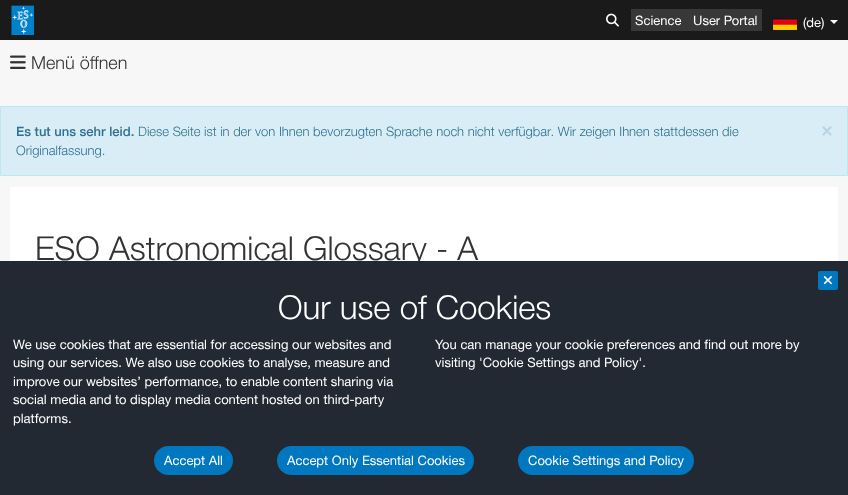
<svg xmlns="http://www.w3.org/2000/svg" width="848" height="495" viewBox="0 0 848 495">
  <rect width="100%" height="100%" fill="#f7f7f7"/>
  <path d="M0 0h848v40H0z" fill="#1a1a1a"/>
  <image x="11" y="5" width="23" height="30" href="img/1.png"/>
  <image x="606" y="13" width="13" height="14" href="img/2.png"/>
  <path d="M631 9h131v22H631z" fill="#383838"/>
  <image x="773" y="18" width="24" height="12" href="img/3.png"/>
  <path d="M830 20H838L834 24Z" fill="#fff"/>
  <image x="10" y="55" width="16" height="14" href="img/4.png"/>
  <path d="M0.5 106.5h847v69H0.5z" fill="#d9edf7" stroke="#bce8f1"/>
  <path d="M10 187h828v74H10z" fill="#fff"/>
  <g font-family="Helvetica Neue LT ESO" font-size="13" fill="#fff">
    <text x="635" y="25">Science</text>
    <text x="693" y="25">User Portal</text>
    <text x="803" y="27">(de)</text>
  </g>
  <text x="31" y="69" font-family="Helvetica Neue LT ESO" font-size="18" font-weight="300" fill="#333">Menü öffnen</text>
  <text x="16" y="136" font-family="Helvetica Neue LT ESO" font-size="13" font-weight="500" fill="#31708f">Es tut uns sehr leid.</text>
  <text x="138" y="136" font-family="Helvetica Neue LT ESO" font-size="13" font-weight="300" fill="#31708f">Diese Seite ist in der von Ihnen bevorzugten Sprache noch nicht verfügbar. Wir zeigen Ihnen stattdessen die</text>
  <text x="821" y="136" font-family="Helvetica Neue LT ESO" font-size="20" font-weight="500" fill="#b7d4e2">×</text>
  <text x="16" y="155" font-family="Helvetica Neue LT ESO" font-size="13" font-weight="300" fill="#31708f">Originalfassung.</text>
  <text x="35" y="260" font-family="Helvetica Neue LT ESO" font-size="33" font-weight="300" fill="#333">ESO Astronomical Glossary - A</text>
  <path d="M0 261h848v234H0z" fill="#232932"/>
  <rect x="818" y="271" width="20" height="19" rx="2" fill="#0077be"/>
  <image x="823" y="276" width="9" height="9" href="img/5.png"/>
  <text x="278" y="319" font-family="Helvetica Neue LT ESO" font-size="33" font-weight="300" fill="#fff">Our use of Cookies</text>
  <g font-family="Helvetica Neue LT ESO" font-size="13" fill="#fff">
    <text x="13" y="349">We use cookies that are essential for accessing our websites and</text>
    <text x="13" y="367">using our services. We also use cookies to analyse, measure and</text>
    <text x="13" y="386">improve our websites’ performance, to enable content sharing via</text>
    <text x="13" y="404">social media and to display media content hosted on third-party</text>
    <text x="13" y="423">platforms.</text>
    <text x="435" y="349">You can manage your cookie preferences and find out more by</text>
    <text x="435" y="367">visiting 'Cookie Settings and Policy'.</text>
  </g>
  <rect x="154" y="446" width="79" height="29" rx="14.5" fill="#0077be"/>
  <text x="164" y="465" font-family="Helvetica Neue LT ESO" font-size="13" fill="#fff">Accept All</text>
  <rect x="277" y="446" width="197" height="29" rx="14.5" fill="#0077be"/>
  <text x="287" y="465" font-family="Helvetica Neue LT ESO" font-size="13" fill="#fff">Accept Only Essential Cookies</text>
  <rect x="518" y="446" width="176" height="29" rx="14.5" fill="#0077be"/>
  <text x="528" y="465" font-family="Helvetica Neue LT ESO" font-size="13" fill="#fff">Cookie Settings and Policy</text>
</svg>
